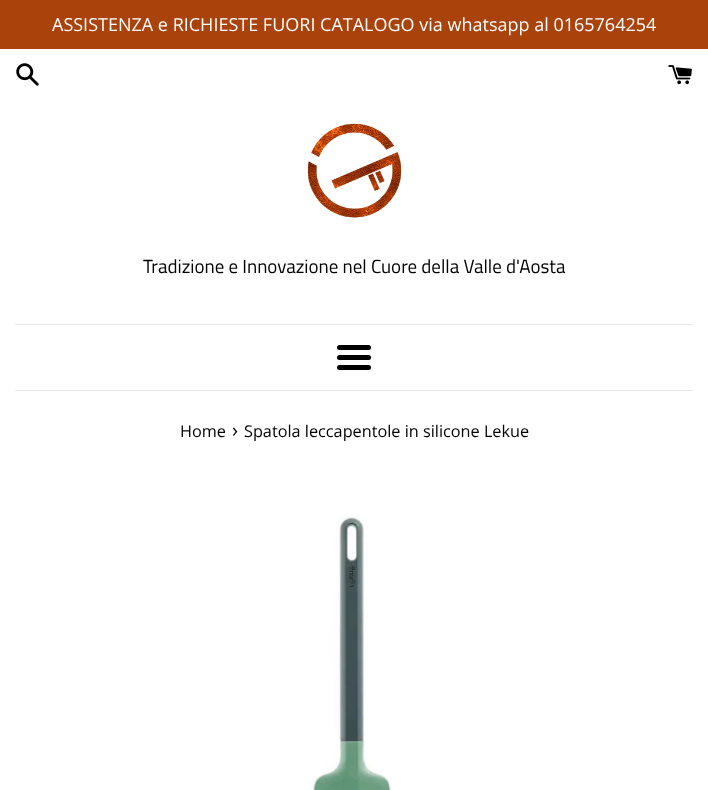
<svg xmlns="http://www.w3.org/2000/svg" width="708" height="790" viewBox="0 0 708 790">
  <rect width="100%" height="100%" fill="#fff"/>
  <path d="M0 0h708v49H0z" fill="#a9420b"/>
  <image x="16" y="63" width="23" height="23" href="img/1.png"/>
  <image x="668" y="65" width="24" height="20" href="img/2.png"/>
  <image x="307" y="123" width="95" height="95" href="img/3.png"/>
  <path d="M15 324h678v1H15z" fill="#e8e8e8"/>
  <rect x="337" y="345" width="34" height="5" rx="2.5" fill="#000"/>
  <rect x="337" y="355" width="34" height="5" rx="2.5" fill="#000"/>
  <rect x="337" y="365" width="34" height="5" rx="2.5" fill="#000"/>
  <path d="M15 390h678v1H15z" fill="#e8e8e8"/>
  <image x="308" y="516" width="84" height="274" href="img/4.png"/>
  <text x="52" y="31" font-family="Open Sans" font-size="18" fill="#fff">ASSISTENZA e RICHIESTE FUORI CATALOGO via whatsapp al 0165764254</text>
  <text x="143" y="273" font-family="Titillium Web" font-size="19" fill="#000">Tradizione e Innovazione nel Cuore della Valle d'Aosta</text>
  <text x="180" y="437" font-family="Open Sans" font-size="16.25" fill="#000">Home</text>
  <text x="232" y="437" font-family="Open Sans" font-size="20" fill="#000">›</text>
  <text x="244" y="437" font-family="Open Sans" font-size="16.25" fill="#000">Spatola leccapentole in silicone Lekue</text>
</svg>
